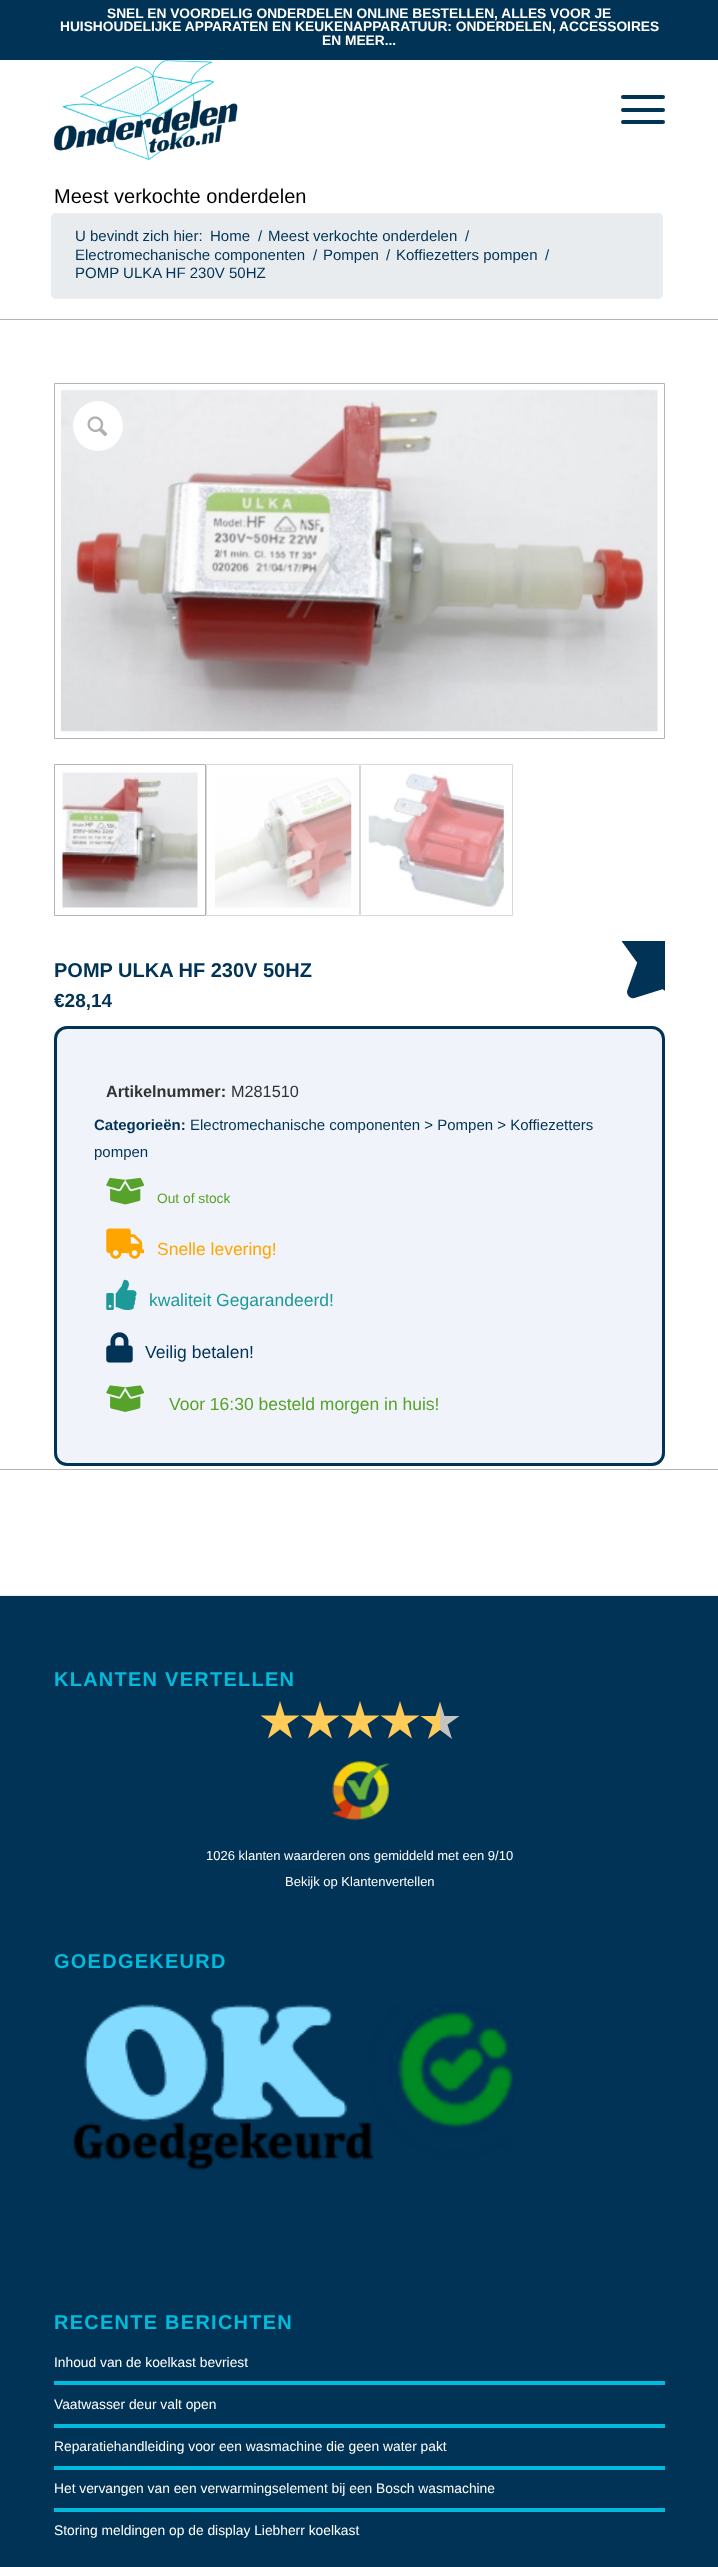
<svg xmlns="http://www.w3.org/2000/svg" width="718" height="2567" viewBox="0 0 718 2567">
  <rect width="100%" height="100%" fill="#fff"/>
  <path d="M0 0h718v60H0z" fill="#013356"/>
  <image x="53" y="60" width="185" height="100" href="img/1.png"/>
  <rect x="621" y="108" width="44" height="4" rx="2" fill="#013356"/>
  <rect x="621" y="95" width="44" height="4" rx="2" fill="#013356"/>
  <rect x="621" y="120" width="44" height="4" rx="2" fill="#013356"/>
  <rect x="51" y="213" width="612" height="86" rx="5" fill="#e9ecef"/>
  <path d="M0 319h718v1H0z" fill="#b3b3b3"/>
  <path d="M54.5 383.5h610v355H54.5z" fill="none" stroke="#b3b3b3"/>
  <image x="61" y="389" width="597" height="343" href="img/2.png"/>
  <path d="M54.5 764.5h151v151H54.5z" fill="none" stroke="#b3b3b3"/>
  <image x="62" y="772" width="136" height="136" href="img/3.png"/>
  <path d="M206.5 764.5h153v151H206.5z" fill="none" stroke="#d9d9d9"/>
  <image x="215" y="777" width="137" height="131" href="img/4.png"/>
  <path d="M360.5 764.5h152v151H360.5z" fill="none" stroke="#d9d9d9"/>
  <image x="368" y="773" width="136" height="135" href="img/5.png"/>
  <circle cx="98" cy="426" r="25" fill="#fff"/>
  <image x="87" y="416" width="21" height="21" href="img/6.png"/>
  <rect x="55.5" y="1027.5" width="608" height="437" rx="11.5" fill="#f0f4fa" stroke="#013356" stroke-width="3"/>
  <image x="621" y="941" width="44" height="58" href="img/7.png"/>
  <image x="106" y="1177" width="39" height="28" href="img/8.png"/>
  <image x="106" y="1228" width="39" height="31" href="img/9.png"/>
  <image x="106" y="1279" width="31" height="31" href="img/10.png"/>
  <image x="106" y="1332" width="27" height="31" href="img/11.png"/>
  <image x="106" y="1385" width="39" height="27" href="img/12.png"/>
  <path d="M0 1469h718v1H0z" fill="#b3b3b3"/>
  <path d="M0 1596h718v971H0z" fill="#013356"/>
  <path d="M0 1595h718v1H0z" fill="#ebebeb"/>
  <path d="M280 1701L284.5 1715.5H299.5L287.5 1724L292 1738.5L280 1729.5L268 1738.5L272.5 1724L260.5 1715.5H275.5Z" fill="#ffcc5a"/>
  <path d="M320 1701L324.5 1715.5H339.5L327.5 1724L332 1738.5L320 1729.5L308 1738.5L312.5 1724L300.5 1715.5H315.5Z" fill="#ffcc5a"/>
  <path d="M360 1701L364.5 1715.5H379.5L367.5 1724L372 1738.5L360 1729.5L348 1738.5L352.5 1724L340.5 1715.5H355.5Z" fill="#ffcc5a"/>
  <path d="M400 1701L404.5 1715.5H419.5L407.5 1724L412 1738.5L400 1729.5L388 1738.5L392.5 1724L380.5 1715.5H395.5ZM440 1701.5V1730L428 1739L432.5 1724.5L420.5 1716H435.5Z" fill="#ffcc5a"/>
  <path d="M440 1701.5V1730L452 1739L447.5 1724.5L459.5 1716H444.5Z" fill="#c4c3c2"/>
  <image x="332" y="1761" width="58" height="60" href="img/13.png"/>
  <image x="73" y="2004" width="441" height="167" href="img/14.png"/>
  <path d="M54 2381h611v4H54z" fill="#02bbdc"/>
  <path d="M54 2424h611v4H54z" fill="#02bbdc"/>
  <path d="M54 2466h611v4H54z" fill="#02bbdc"/>
  <path d="M54 2508h611v4H54z" fill="#02bbdc"/>
  <g font-family="Liberation Sans" font-size="13.75" font-weight="bold" fill="#fff">
    <text x="107" y="18">SNEL EN VOORDELIG ONDERDELEN ONLINE BESTELLEN, ALLES VOOR JE</text>
    <text x="60" y="31">HUISHOUDELIJKE APPARATEN EN KEUKENAPPARATUUR: ONDERDELEN, ACCESSOIRES</text>
    <text x="322" y="45">EN MEER...</text>
  </g>
  <text x="54" y="203" font-family="Liberation Sans" font-size="20" fill="#000">Meest verkochte onderdelen</text>
  <g font-family="Liberation Sans" font-size="15" fill="#013356">
    <text x="75" y="241">U bevindt zich hier:</text>
    <text x="210" y="241">Home</text>
    <text x="258" y="241">/</text>
    <text x="268" y="241">Meest verkochte onderdelen</text>
    <text x="465" y="241">/</text>
    <text x="75" y="260">Electromechanische componenten</text>
    <text x="313" y="260">/</text>
    <text x="323" y="260">Pompen</text>
    <text x="386" y="260">/</text>
    <text x="396" y="260">Koffiezetters pompen</text>
    <text x="545" y="260">/</text>
    <text x="75" y="278">POMP ULKA HF 230V 50HZ</text>
  </g>
  <text x="54" y="977" font-family="Liberation Sans" font-size="20" font-weight="bold" fill="#013356">POMP ULKA HF 230V 50HZ</text>
  <text x="54" y="1007" font-family="Liberation Sans" font-size="19" font-weight="bold" fill="#013356">€28,14</text>
  <text x="106" y="1097" font-family="Liberation Sans" font-size="16.25" font-weight="bold" fill="#333">Artikelnummer:</text>
  <text x="231" y="1097" font-family="Liberation Sans" font-size="16.25" fill="#333">M281510</text>
  <text x="94" y="1130" font-family="Liberation Sans" font-size="15" font-weight="bold" fill="#013356">Categorieën:</text>
  <g font-family="Liberation Sans" font-size="15" fill="#013356">
    <text x="190" y="1130">Electromechanische componenten &gt; Pompen &gt; Koffiezetters</text>
    <text x="94" y="1157">pompen</text>
  </g>
  <text x="157" y="1203" font-family="Liberation Sans" font-size="13.75" fill="#57a22b">Out of stock</text>
  <text x="157" y="1255" font-family="Liberation Sans" font-size="17.5" fill="#ffa500">Snelle levering!</text>
  <text x="149" y="1306" font-family="Liberation Sans" font-size="17.5" fill="#1d9999">kwaliteit Gegarandeerd!</text>
  <text x="145" y="1358" font-family="Liberation Sans" font-size="17.5" fill="#013356">Veilig betalen!</text>
  <text x="169" y="1410" font-family="Liberation Sans" font-size="17.5" fill="#57a22b">Voor 16:30 besteld morgen in huis!</text>
  <text x="54" y="1686" font-family="Liberation Sans" font-size="20" font-weight="bold" letter-spacing="1.25" fill="#02bbdc">KLANTEN VERTELLEN</text>
  <g font-family="Liberation Sans" font-size="13" fill="#fff">
    <text x="206" y="1860">1026 klanten waarderen ons gemiddeld met een 9/10</text>
    <text x="285" y="1886">Bekijk op Klantenvertellen</text>
  </g>
  <g font-family="Liberation Sans" font-size="20" font-weight="bold" letter-spacing="1.25" fill="#02bbdc">
    <text x="54" y="1968">GOEDGEKEURD</text>
    <text x="54" y="2329">RECENTE BERICHTEN</text>
  </g>
  <g font-family="Liberation Sans" font-size="13.8" fill="#fff">
    <text x="54" y="2367">Inhoud van de koelkast bevriest</text>
    <text x="54" y="2409">Vaatwasser deur valt open</text>
    <text x="54" y="2451">Reparatiehandleiding voor een wasmachine die geen water pakt</text>
    <text x="54" y="2493">Het vervangen van een verwarmingselement bij een Bosch wasmachine</text>
    <text x="54" y="2535">Storing meldingen op de display Liebherr koelkast</text>
  </g>
</svg>
